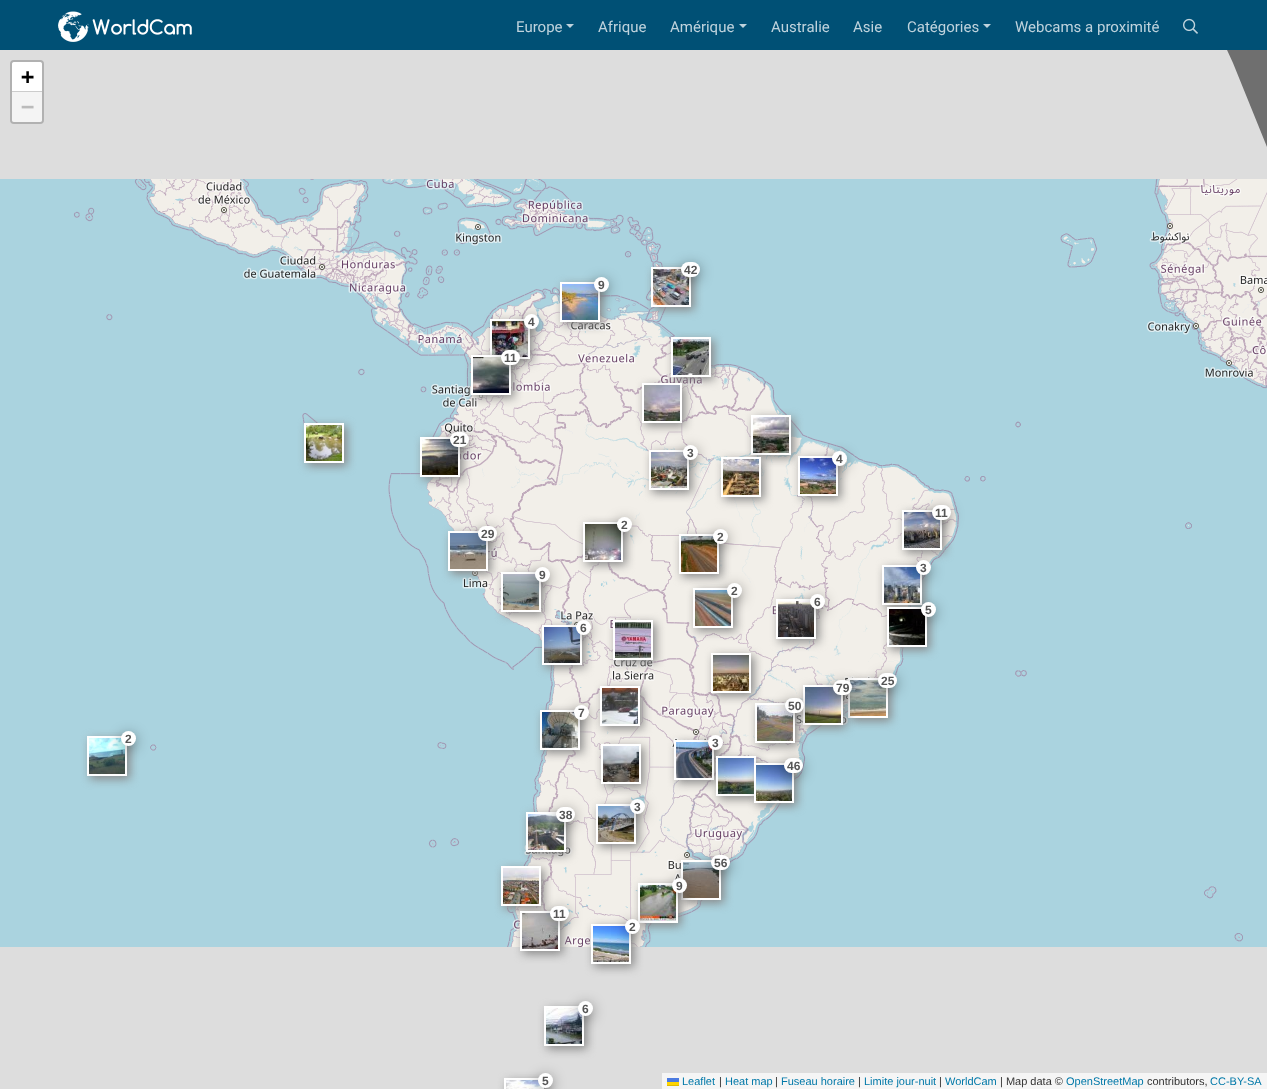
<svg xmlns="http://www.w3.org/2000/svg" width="1267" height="1089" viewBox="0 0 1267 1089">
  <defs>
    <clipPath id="clip1"><path d="M0 50h1267v1039H0z"/></clipPath>
  </defs>
  <rect width="100%" height="100%" fill="#005075"/>
  <image x="58" y="11" width="134" height="31" href="img/1.png"/>
  <path d="M566 24H574L570 28Z" fill="#bfd3dd"/>
  <path d="M739 24H747L743 28Z" fill="#bfd3dd"/>
  <path d="M983 24H991L987 28Z" fill="#bfd3dd"/>
  <image x="1183" y="18" width="15" height="16" href="img/2.png"/>
  <path d="M0 50h1267v1039H0z" fill="#ddd"/>
  <rect x="11" y="61" width="32" height="62" rx="3" fill="none" stroke="#b1b1b1" stroke-width="2"/>
  <path d="M14 62H40C41 62 42 63 42 64V92H12V64C12 63 13 62 14 62Z" fill="#fff"/>
  <path d="M12 91h30v1H12z" fill="#ccc"/>
  <path d="M12 92H42V120C42 121 41 122 40 122H14C13 122 12 121 12 120Z" fill="#f4f4f4"/>
  <path d="M662 1073h605v16H662z" fill="#f5f5f5"/>
  <path d="M667 1078h12v4H667z" fill="#4c7be1"/>
  <path d="M667 1082h12v3H667z" fill="#ffd500"/>
  <path d="M667 1085h12v1H667z" fill="#e0bc00"/>
  <g clip-path="url(#clip1)">
    <path d="M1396-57H1178L1233 63L1267 147L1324 297L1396 499Z" fill="#6f6f6f" fill-rule="evenodd"/>
  </g>
  <path d="M0 179h72v768H0z" fill="#aad3df"/>
  <image x="72" y="179" width="256" height="256" href="img/3.png"/>
  <image x="328" y="179" width="256" height="256" href="img/4.png"/>
  <image x="584" y="179" width="256" height="256" href="img/5.png"/>
  <image x="840" y="179" width="256" height="256" href="img/6.png"/>
  <image x="1096" y="179" width="171" height="256" href="img/7.png"/>
  <image x="72" y="435" width="256" height="256" href="img/8.png"/>
  <image x="328" y="435" width="256" height="256" href="img/9.png"/>
  <image x="584" y="435" width="256" height="256" href="img/10.png"/>
  <image x="840" y="435" width="256" height="256" href="img/11.png"/>
  <image x="1096" y="435" width="171" height="256" href="img/12.png"/>
  <image x="72" y="691" width="256" height="256" href="img/13.png"/>
  <image x="328" y="691" width="256" height="256" href="img/14.png"/>
  <image x="584" y="691" width="256" height="256" href="img/15.png"/>
  <image x="840" y="691" width="256" height="256" href="img/16.png"/>
  <image x="1096" y="691" width="171" height="256" href="img/17.png"/>
  <path d="M654 270h40v40H654z" fill="#888" filter="blur(5px)"/>
  <path d="M652 268h38v38H652z" fill="none" stroke="#fff" stroke-width="2"/>
  <image x="653" y="269" width="36" height="36" href="img/18.png"/>
  <rect x="681" y="265" width="19" height="15" rx="7.5" fill="#00000066" filter="blur(7px)"/>
  <rect x="681" y="262" width="19" height="15" rx="7.5" fill="#fff"/>
  <path d="M563 285h40v40H563z" fill="#888" filter="blur(5px)"/>
  <path d="M561 283h38v38H561z" fill="none" stroke="#fff" stroke-width="2"/>
  <image x="562" y="284" width="36" height="36" href="img/19.png"/>
  <rect x="594" y="280" width="15" height="15" rx="7.5" fill="#00000066" filter="blur(7px)"/>
  <circle cx="601.5" cy="284.5" r="7.5" fill="#fff"/>
  <path d="M493 322h40v40H493z" fill="#888" filter="blur(5px)"/>
  <path d="M491 320h38v38H491z" fill="none" stroke="#fff" stroke-width="2"/>
  <image x="492" y="321" width="36" height="36" href="img/20.png"/>
  <rect x="524" y="317" width="15" height="15" rx="7.5" fill="#00000066" filter="blur(7px)"/>
  <circle cx="531.5" cy="321.5" r="7.5" fill="#fff"/>
  <path d="M474 358h40v40H474z" fill="#888" filter="blur(5px)"/>
  <path d="M472 356h38v38H472z" fill="none" stroke="#fff" stroke-width="2"/>
  <image x="473" y="357" width="36" height="36" href="img/21.png"/>
  <rect x="501" y="353" width="19" height="15" rx="7.5" fill="#00000066" filter="blur(7px)"/>
  <rect x="501" y="350" width="19" height="15" rx="7.5" fill="#fff"/>
  <path d="M674 340h40v40H674z" fill="#888" filter="blur(5px)"/>
  <path d="M672 338h38v38H672z" fill="none" stroke="#fff" stroke-width="2"/>
  <image x="673" y="339" width="36" height="36" href="img/22.png"/>
  <path d="M307 426h40v40H307z" fill="#888" filter="blur(5px)"/>
  <path d="M305 424h38v38H305z" fill="none" stroke="#fff" stroke-width="2"/>
  <image x="306" y="425" width="36" height="36" href="img/23.png"/>
  <path d="M423 440h40v40H423z" fill="#888" filter="blur(5px)"/>
  <path d="M421 438h38v38H421z" fill="none" stroke="#fff" stroke-width="2"/>
  <image x="422" y="439" width="36" height="36" href="img/24.png"/>
  <rect x="450" y="435" width="19" height="15" rx="7.5" fill="#00000066" filter="blur(7px)"/>
  <rect x="450" y="432" width="19" height="15" rx="7.5" fill="#fff"/>
  <path d="M645 386h40v40H645z" fill="#888" filter="blur(5px)"/>
  <path d="M643 384h38v38H643z" fill="none" stroke="#fff" stroke-width="2"/>
  <image x="644" y="385" width="36" height="36" href="img/25.png"/>
  <path d="M754 418h40v40H754z" fill="#888" filter="blur(5px)"/>
  <path d="M752 416h38v38H752z" fill="none" stroke="#fff" stroke-width="2"/>
  <image x="753" y="417" width="36" height="36" href="img/26.png"/>
  <path d="M652 453h40v40H652z" fill="#888" filter="blur(5px)"/>
  <path d="M650 451h38v38H650z" fill="none" stroke="#fff" stroke-width="2"/>
  <image x="651" y="452" width="36" height="36" href="img/27.png"/>
  <rect x="683" y="448" width="15" height="15" rx="7.5" fill="#00000066" filter="blur(7px)"/>
  <circle cx="690.5" cy="452.5" r="7.5" fill="#fff"/>
  <path d="M724 460h40v40H724z" fill="#888" filter="blur(5px)"/>
  <path d="M722 458h38v38H722z" fill="none" stroke="#fff" stroke-width="2"/>
  <image x="723" y="459" width="36" height="36" href="img/28.png"/>
  <path d="M801 459h40v40H801z" fill="#888" filter="blur(5px)"/>
  <path d="M799 457h38v38H799z" fill="none" stroke="#fff" stroke-width="2"/>
  <image x="800" y="458" width="36" height="36" href="img/29.png"/>
  <rect x="832" y="454" width="15" height="15" rx="7.5" fill="#00000066" filter="blur(7px)"/>
  <circle cx="839.5" cy="458.5" r="7.5" fill="#fff"/>
  <path d="M905 513h40v40H905z" fill="#888" filter="blur(5px)"/>
  <path d="M903 511h38v38H903z" fill="none" stroke="#fff" stroke-width="2"/>
  <image x="904" y="512" width="36" height="36" href="img/30.png"/>
  <rect x="932" y="508" width="19" height="15" rx="7.5" fill="#00000066" filter="blur(7px)"/>
  <rect x="932" y="505" width="19" height="15" rx="7.5" fill="#fff"/>
  <path d="M586 525h40v40H586z" fill="#888" filter="blur(5px)"/>
  <path d="M584 523h38v38H584z" fill="none" stroke="#fff" stroke-width="2"/>
  <image x="585" y="524" width="36" height="36" href="img/31.png"/>
  <rect x="617" y="520" width="15" height="15" rx="7.5" fill="#00000066" filter="blur(7px)"/>
  <circle cx="624.5" cy="524.5" r="7.5" fill="#fff"/>
  <path d="M451 534h40v40H451z" fill="#888" filter="blur(5px)"/>
  <path d="M449 532h38v38H449z" fill="none" stroke="#fff" stroke-width="2"/>
  <image x="450" y="533" width="36" height="36" href="img/32.png"/>
  <rect x="478" y="529" width="19" height="15" rx="7.5" fill="#00000066" filter="blur(7px)"/>
  <rect x="478" y="526" width="19" height="15" rx="7.5" fill="#fff"/>
  <path d="M682 537h40v40H682z" fill="#888" filter="blur(5px)"/>
  <path d="M680 535h38v38H680z" fill="none" stroke="#fff" stroke-width="2"/>
  <image x="681" y="536" width="36" height="36" href="img/33.png"/>
  <rect x="713" y="532" width="15" height="15" rx="7.5" fill="#00000066" filter="blur(7px)"/>
  <circle cx="720.5" cy="536.5" r="7.5" fill="#fff"/>
  <path d="M885 568h40v40H885z" fill="#888" filter="blur(5px)"/>
  <path d="M883 566h38v38H883z" fill="none" stroke="#fff" stroke-width="2"/>
  <image x="884" y="567" width="36" height="36" href="img/34.png"/>
  <rect x="916" y="563" width="15" height="15" rx="7.5" fill="#00000066" filter="blur(7px)"/>
  <circle cx="923.5" cy="567.5" r="7.5" fill="#fff"/>
  <path d="M504 575h40v40H504z" fill="#888" filter="blur(5px)"/>
  <path d="M502 573h38v38H502z" fill="none" stroke="#fff" stroke-width="2"/>
  <image x="503" y="574" width="36" height="36" href="img/35.png"/>
  <rect x="535" y="570" width="15" height="15" rx="7.5" fill="#00000066" filter="blur(7px)"/>
  <circle cx="542.5" cy="574.5" r="7.5" fill="#fff"/>
  <path d="M696 591h40v40H696z" fill="#888" filter="blur(5px)"/>
  <path d="M694 589h38v38H694z" fill="none" stroke="#fff" stroke-width="2"/>
  <image x="695" y="590" width="36" height="36" href="img/36.png"/>
  <rect x="727" y="586" width="15" height="15" rx="7.5" fill="#00000066" filter="blur(7px)"/>
  <circle cx="734.5" cy="590.5" r="7.5" fill="#fff"/>
  <path d="M779 602h40v40H779z" fill="#888" filter="blur(5px)"/>
  <path d="M777 600h38v38H777z" fill="none" stroke="#fff" stroke-width="2"/>
  <image x="778" y="601" width="36" height="36" href="img/37.png"/>
  <rect x="810" y="597" width="15" height="15" rx="7.5" fill="#00000066" filter="blur(7px)"/>
  <circle cx="817.5" cy="601.5" r="7.5" fill="#fff"/>
  <path d="M545 628h40v40H545z" fill="#888" filter="blur(5px)"/>
  <path d="M543 626h38v38H543z" fill="none" stroke="#fff" stroke-width="2"/>
  <image x="544" y="627" width="36" height="36" href="img/38.png"/>
  <rect x="576" y="623" width="15" height="15" rx="7.5" fill="#00000066" filter="blur(7px)"/>
  <circle cx="583.5" cy="627.5" r="7.5" fill="#fff"/>
  <path d="M616 623h40v40H616z" fill="#888" filter="blur(5px)"/>
  <path d="M614 621h38v38H614z" fill="none" stroke="#fff" stroke-width="2"/>
  <image x="615" y="622" width="36" height="36" href="img/39.png"/>
  <path d="M890 610h40v40H890z" fill="#888" filter="blur(5px)"/>
  <path d="M888 608h38v38H888z" fill="none" stroke="#fff" stroke-width="2"/>
  <image x="889" y="609" width="36" height="36" href="img/40.png"/>
  <rect x="921" y="605" width="15" height="15" rx="7.5" fill="#00000066" filter="blur(7px)"/>
  <circle cx="928.5" cy="609.5" r="7.5" fill="#fff"/>
  <path d="M603 689h40v40H603z" fill="#888" filter="blur(5px)"/>
  <path d="M601 687h38v38H601z" fill="none" stroke="#fff" stroke-width="2"/>
  <image x="602" y="688" width="36" height="36" href="img/41.png"/>
  <path d="M714 656h40v40H714z" fill="#888" filter="blur(5px)"/>
  <path d="M712 654h38v38H712z" fill="none" stroke="#fff" stroke-width="2"/>
  <image x="713" y="655" width="36" height="36" href="img/42.png"/>
  <path d="M851 681h40v40H851z" fill="#888" filter="blur(5px)"/>
  <path d="M849 679h38v38H849z" fill="none" stroke="#fff" stroke-width="2"/>
  <image x="850" y="680" width="36" height="36" href="img/43.png"/>
  <rect x="878" y="676" width="19" height="15" rx="7.5" fill="#00000066" filter="blur(7px)"/>
  <rect x="878" y="673" width="19" height="15" rx="7.5" fill="#fff"/>
  <path d="M806 688h40v40H806z" fill="#888" filter="blur(5px)"/>
  <path d="M804 686h38v38H804z" fill="none" stroke="#fff" stroke-width="2"/>
  <image x="805" y="687" width="36" height="36" href="img/44.png"/>
  <rect x="833" y="683" width="19" height="15" rx="7.5" fill="#00000066" filter="blur(7px)"/>
  <rect x="833" y="680" width="19" height="15" rx="7.5" fill="#fff"/>
  <path d="M758 706h40v40H758z" fill="#888" filter="blur(5px)"/>
  <path d="M756 704h38v38H756z" fill="none" stroke="#fff" stroke-width="2"/>
  <image x="757" y="705" width="36" height="36" href="img/45.png"/>
  <rect x="785" y="701" width="19" height="15" rx="7.5" fill="#00000066" filter="blur(7px)"/>
  <rect x="785" y="698" width="19" height="15" rx="7.5" fill="#fff"/>
  <path d="M543 713h40v40H543z" fill="#888" filter="blur(5px)"/>
  <path d="M541 711h38v38H541z" fill="none" stroke="#fff" stroke-width="2"/>
  <image x="542" y="712" width="36" height="36" href="img/46.png"/>
  <rect x="574" y="708" width="15" height="15" rx="7.5" fill="#00000066" filter="blur(7px)"/>
  <circle cx="581.5" cy="712.5" r="7.5" fill="#fff"/>
  <path d="M90 739h40v40H90z" fill="#888" filter="blur(5px)"/>
  <path d="M88 737h38v38H88z" fill="none" stroke="#fff" stroke-width="2"/>
  <image x="89" y="738" width="36" height="36" href="img/47.png"/>
  <rect x="121" y="734" width="15" height="15" rx="7.5" fill="#00000066" filter="blur(7px)"/>
  <circle cx="128.5" cy="738.5" r="7.5" fill="#fff"/>
  <path d="M604 747h40v40H604z" fill="#888" filter="blur(5px)"/>
  <path d="M602 745h38v38H602z" fill="none" stroke="#fff" stroke-width="2"/>
  <image x="603" y="746" width="36" height="36" href="img/48.png"/>
  <path d="M677 743h40v40H677z" fill="#888" filter="blur(5px)"/>
  <path d="M675 741h38v38H675z" fill="none" stroke="#fff" stroke-width="2"/>
  <image x="676" y="742" width="36" height="36" href="img/49.png"/>
  <rect x="708" y="738" width="15" height="15" rx="7.5" fill="#00000066" filter="blur(7px)"/>
  <circle cx="715.5" cy="742.5" r="7.5" fill="#fff"/>
  <path d="M719 759h40v40H719z" fill="#888" filter="blur(5px)"/>
  <path d="M717 757h38v38H717z" fill="none" stroke="#fff" stroke-width="2"/>
  <image x="718" y="758" width="36" height="36" href="img/50.png"/>
  <path d="M757 766h40v40H757z" fill="#888" filter="blur(5px)"/>
  <path d="M755 764h38v38H755z" fill="none" stroke="#fff" stroke-width="2"/>
  <image x="756" y="765" width="36" height="36" href="img/51.png"/>
  <rect x="784" y="761" width="19" height="15" rx="7.5" fill="#00000066" filter="blur(7px)"/>
  <rect x="784" y="758" width="19" height="15" rx="7.5" fill="#fff"/>
  <path d="M599 807h40v40H599z" fill="#888" filter="blur(5px)"/>
  <path d="M597 805h38v38H597z" fill="none" stroke="#fff" stroke-width="2"/>
  <image x="598" y="806" width="36" height="36" href="img/52.png"/>
  <rect x="630" y="802" width="15" height="15" rx="7.5" fill="#00000066" filter="blur(7px)"/>
  <circle cx="637.5" cy="806.5" r="7.5" fill="#fff"/>
  <path d="M529 815h40v40H529z" fill="#888" filter="blur(5px)"/>
  <path d="M527 813h38v38H527z" fill="none" stroke="#fff" stroke-width="2"/>
  <image x="528" y="814" width="36" height="36" href="img/53.png"/>
  <rect x="556" y="810" width="19" height="15" rx="7.5" fill="#00000066" filter="blur(7px)"/>
  <rect x="556" y="807" width="19" height="15" rx="7.5" fill="#fff"/>
  <path d="M504 869h40v40H504z" fill="#888" filter="blur(5px)"/>
  <path d="M502 867h38v38H502z" fill="none" stroke="#fff" stroke-width="2"/>
  <image x="503" y="868" width="36" height="36" href="img/54.png"/>
  <path d="M684 863h40v40H684z" fill="#888" filter="blur(5px)"/>
  <path d="M682 861h38v38H682z" fill="none" stroke="#fff" stroke-width="2"/>
  <image x="683" y="862" width="36" height="36" href="img/55.png"/>
  <rect x="711" y="858" width="19" height="15" rx="7.5" fill="#00000066" filter="blur(7px)"/>
  <rect x="711" y="855" width="19" height="15" rx="7.5" fill="#fff"/>
  <path d="M641 886h40v40H641z" fill="#888" filter="blur(5px)"/>
  <path d="M639 884h38v38H639z" fill="none" stroke="#fff" stroke-width="2"/>
  <image x="640" y="885" width="36" height="36" href="img/56.png"/>
  <rect x="672" y="881" width="15" height="15" rx="7.5" fill="#00000066" filter="blur(7px)"/>
  <circle cx="679.5" cy="885.5" r="7.5" fill="#fff"/>
  <path d="M523 914h40v40H523z" fill="#888" filter="blur(5px)"/>
  <path d="M521 912h38v38H521z" fill="none" stroke="#fff" stroke-width="2"/>
  <image x="522" y="913" width="36" height="36" href="img/57.png"/>
  <rect x="550" y="909" width="19" height="15" rx="7.5" fill="#00000066" filter="blur(7px)"/>
  <rect x="550" y="906" width="19" height="15" rx="7.5" fill="#fff"/>
  <path d="M594 927h40v40H594z" fill="#888" filter="blur(5px)"/>
  <path d="M592 925h38v38H592z" fill="none" stroke="#fff" stroke-width="2"/>
  <image x="593" y="926" width="36" height="36" href="img/58.png"/>
  <rect x="625" y="922" width="15" height="15" rx="7.5" fill="#00000066" filter="blur(7px)"/>
  <circle cx="632.5" cy="926.5" r="7.5" fill="#fff"/>
  <path d="M547 1009h40v40H547z" fill="#888" filter="blur(5px)"/>
  <path d="M545 1007h38v38H545z" fill="none" stroke="#fff" stroke-width="2"/>
  <image x="546" y="1008" width="36" height="36" href="img/59.png"/>
  <rect x="578" y="1004" width="15" height="15" rx="7.5" fill="#00000066" filter="blur(7px)"/>
  <circle cx="585.5" cy="1008.5" r="7.5" fill="#fff"/>
  <path d="M507 1081h40v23H507z" fill="#888" filter="blur(5px)"/>
  <path d="M505 1079h38v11H505z" fill="none" stroke="#fff" stroke-width="2"/>
  <image x="506" y="1080" width="36" height="9" href="img/60.png"/>
  <rect x="538" y="1076" width="15" height="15" rx="7.5" fill="#00000066" filter="blur(7px)"/>
  <circle cx="545.5" cy="1080.5" r="7.5" fill="#fff"/>
  <g font-family="Roboto" font-size="15" fill="#bfd3dd">
    <text x="516" y="32">Europe</text>
    <text x="598" y="32">Afrique</text>
    <text x="670" y="32">Amérique</text>
    <text x="771" y="32">Australie</text>
    <text x="853" y="32">Asie</text>
    <text x="907" y="32">Catégories</text>
    <text x="1015" y="32">Webcams a proximité</text>
  </g>
  <text x="21" y="84" font-family="DejaVu Sans Mono" font-size="22" font-weight="bold" fill="#000">+</text>
  <text x="21" y="114" font-family="DejaVu Sans Mono" font-size="22" font-weight="bold" fill="#bbb">−</text>
  <text x="682" y="1085" font-family="Liberation Sans" font-size="11" fill="#0078a8">Leaflet</text>
  <text x="719" y="1085" font-family="Liberation Sans" font-size="11" fill="#333">|</text>
  <text x="725" y="1085" font-family="Liberation Sans" font-size="11" fill="#0078a8">Heat map</text>
  <text x="775" y="1085" font-family="Liberation Sans" font-size="11" fill="#333">|</text>
  <text x="781" y="1085" font-family="Liberation Sans" font-size="11" fill="#0078a8">Fuseau horaire</text>
  <text x="858" y="1085" font-family="Liberation Sans" font-size="11" fill="#333">|</text>
  <text x="864" y="1085" font-family="Liberation Sans" font-size="11" fill="#0078a8">Limite jour-nuit</text>
  <text x="939" y="1085" font-family="Liberation Sans" font-size="11" fill="#333">|</text>
  <text x="945" y="1085" font-family="Liberation Sans" font-size="11" fill="#0078a8">WorldCam</text>
  <text x="1000" y="1085" font-family="Liberation Sans" font-size="11" fill="#333">| Map data ©</text>
  <text x="1066" y="1085" font-family="Liberation Sans" font-size="11" fill="#0078a8">OpenStreetMap</text>
  <text x="1147" y="1085" font-family="Liberation Sans" font-size="11" fill="#333">contributors,</text>
  <text x="1210" y="1085" font-family="Liberation Sans" font-size="11" fill="#0078a8">CC-BY-SA</text>
  <g font-family="Liberation Sans" font-size="12" font-weight="bold" fill="#555">
    <text x="684" y="274">42</text>
    <text x="598" y="289">9</text>
    <text x="528" y="326">4</text>
    <text x="504" y="362">11</text>
    <text x="453" y="444">21</text>
    <text x="687" y="457">3</text>
    <text x="836" y="463">4</text>
    <text x="935" y="517">11</text>
    <text x="621" y="529">2</text>
    <text x="481" y="538">29</text>
    <text x="717" y="541">2</text>
    <text x="920" y="572">3</text>
    <text x="539" y="579">9</text>
    <text x="731" y="595">2</text>
    <text x="814" y="606">6</text>
    <text x="580" y="632">6</text>
    <text x="925" y="614">5</text>
    <text x="881" y="685">25</text>
    <text x="836" y="692">79</text>
    <text x="788" y="710">50</text>
    <text x="578" y="717">7</text>
    <text x="125" y="743">2</text>
    <text x="712" y="747">3</text>
    <text x="787" y="770">46</text>
    <text x="634" y="811">3</text>
    <text x="559" y="819">38</text>
    <text x="714" y="867">56</text>
    <text x="676" y="890">9</text>
    <text x="553" y="918">11</text>
    <text x="629" y="931">2</text>
    <text x="582" y="1013">6</text>
    <text x="542" y="1085">5</text>
  </g>
</svg>
